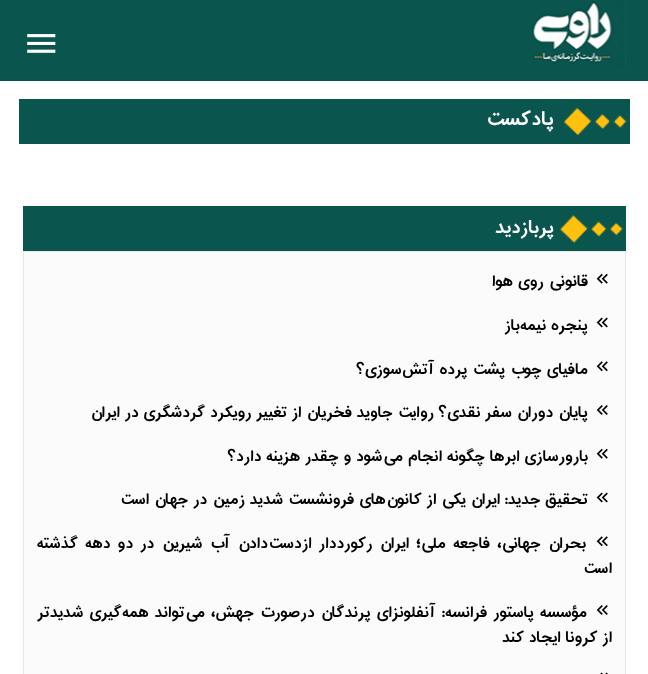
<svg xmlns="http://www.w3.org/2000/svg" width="648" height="674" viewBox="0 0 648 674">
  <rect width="100%" height="100%" fill="#fff"/>
  <path d="M0 0h648v81H0z" fill="#0a554e"/>
  <image x="532" y="0" width="94" height="69" href="img/1.png"/>
  <image x="27" y="34" width="29" height="19" href="img/2.png"/>
  <path d="M19 99h611v45H19z" fill="#0a554e"/>
  <image x="563" y="107" width="64" height="29" href="img/3.png"/>
  <path d="M23 206h603v45H23z" fill="#0a554e"/>
  <image x="559" y="215" width="64" height="28" href="img/4.png"/>
  <path d="M23.5 251.5h602v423H23.5z" fill="#fbfbfb" stroke="#e7e7e7"/>
  <image x="596" y="273" width="12" height="11" href="img/5.png"/>
  <image x="596" y="317" width="12" height="11" href="img/6.png"/>
  <image x="596" y="361" width="12" height="11" href="img/7.png"/>
  <image x="596" y="405" width="12" height="10" href="img/8.png"/>
  <image x="596" y="448" width="12" height="11" href="img/5.png"/>
  <image x="596" y="492" width="12" height="11" href="img/6.png"/>
  <image x="596" y="536" width="12" height="11" href="img/7.png"/>
  <image x="596" y="605" width="12" height="10" href="img/8.png"/>
  <image x="600" y="672" width="8" height="2" href="img/9.png"/>
  <text x="554" y="125" font-family="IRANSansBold" font-size="24" font-weight="bold" direction="rtl" fill="#fff">پادکست</text>
  <text x="554" y="233" font-family="IRANSansBold" font-size="22.5" font-weight="bold" direction="rtl" fill="#fff">پربازدید</text>
  <g font-family="IRANSansBold" font-size="18.75" font-weight="bold" direction="rtl" fill="#000">
    <text x="588" y="286">قانونی روی هوا</text>
    <text x="588" y="330">پنجره نیمه‌باز</text>
    <text x="588" y="374">مافیای چوب پشت پرده آتش‌سوزی؟</text>
    <text x="588" y="417">پایان دوران سفر نقدی؟ روایت جاوید فخریان از تغییر رویکرد گردشگری در ایران</text>
    <text x="588" y="461">بارورسازی ابرها چگونه انجام می‌شود و چقدر هزینه دارد؟</text>
    <text x="588" y="504">تحقیق جدید: ایران یکی از کانون‌های فرونشست شدید زمین در جهان است</text>
    <text x="586" y="548" word-spacing="2.4">بحران جهانی، فاجعه ملی؛ ایران رکورددار ازدست‌دادن آب شیرین در دو دهه گذشته</text>
    <text x="612" y="573">است</text>
    <text x="587" y="617" word-spacing="1.25">مؤسسه پاستور فرانسه: آنفلونزای پرندگان درصورت جهش، می‌تواند همه‌گیری شدیدتر</text>
    <text x="612" y="642">از کرونا ایجاد کند</text>
  </g>
</svg>
